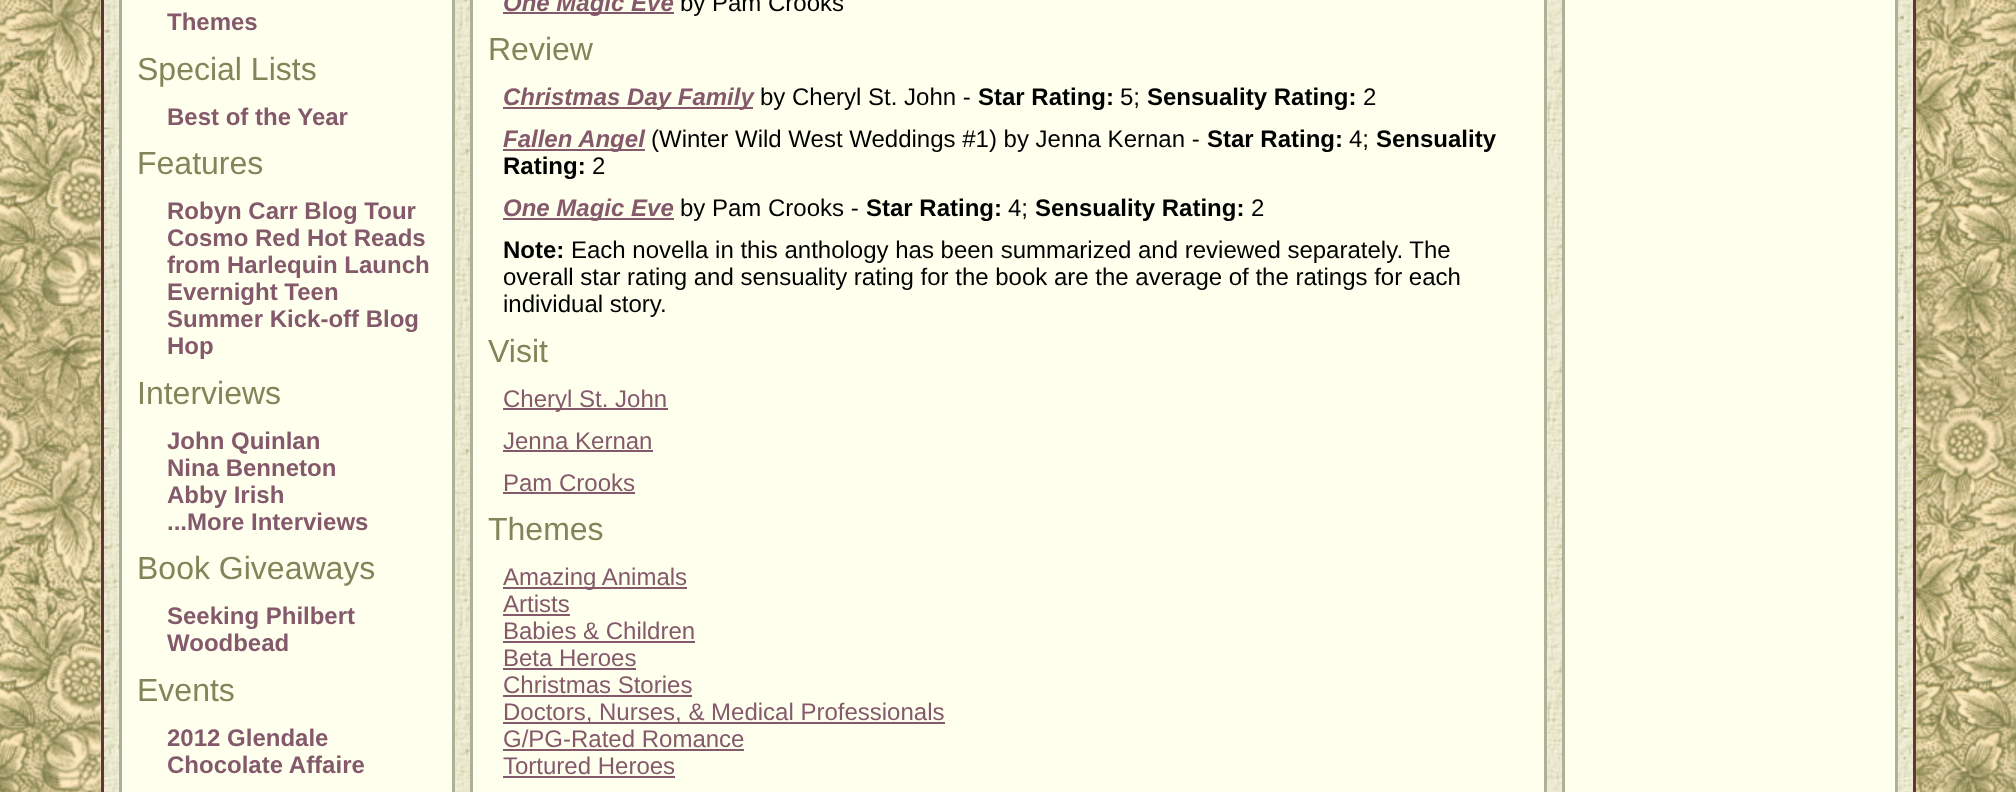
<svg xmlns="http://www.w3.org/2000/svg" width="2016" height="792" viewBox="0 0 2016 792">
  <rect width="100%" height="100%" fill="#fff"/>
  <image x="0" y="0" width="2016" height="792" href="img/1.png"/>
  <image x="100" y="0" width="1813" height="792" href="img/2.png"/>
  <path d="M102.5 -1.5h1812v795H102.5z" fill="none" stroke="#633" stroke-width="3"/>
  <path d="M120.5 -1.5h333v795H120.5z" fill="#ffe" stroke="#aeb196" stroke-width="3"/>
  <path d="M471.5 -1.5h1074v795H471.5z" fill="#ffe" stroke="#aeb196" stroke-width="3"/>
  <path d="M503 12h171v2H503z" fill="#84596b"/>
  <path d="M503 107h250v2H503z" fill="#84596b"/>
  <path d="M503 149h142v2H503z" fill="#84596b"/>
  <path d="M503 218h171v2H503z" fill="#84596b"/>
  <path d="M503 408h165v2H503z" fill="#84596b"/>
  <path d="M503 450h150v2H503z" fill="#84596b"/>
  <path d="M503 492h132v2H503z" fill="#84596b"/>
  <path d="M503 587h184v2H503z" fill="#84596b"/>
  <path d="M503 614h67v2H503z" fill="#84596b"/>
  <path d="M503 641h192v2H503z" fill="#84596b"/>
  <path d="M503 668h133v2H503z" fill="#84596b"/>
  <path d="M503 695h189v2H503z" fill="#84596b"/>
  <path d="M503 722h442v2H503z" fill="#84596b"/>
  <path d="M503 749h241v2H503z" fill="#84596b"/>
  <path d="M503 776h172v2H503z" fill="#84596b"/>
  <path d="M1563.5 -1.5h333v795H1563.5z" fill="#ffe" stroke="#aeb196" stroke-width="3"/>
  <text x="167" y="30" font-family="Liberation Sans" font-size="24" font-weight="bold" fill="#84596b">Themes</text>
  <text x="137" y="80" font-family="Liberation Sans" font-size="32" fill="#818559">Special Lists</text>
  <text x="167" y="125" font-family="Liberation Sans" font-size="24" font-weight="bold" fill="#84596b">Best of the Year</text>
  <text x="137" y="174" font-family="Liberation Sans" font-size="32" fill="#818559">Features</text>
  <g font-family="Liberation Sans" font-size="24" font-weight="bold" fill="#84596b">
    <text x="167" y="219">Robyn Carr Blog Tour</text>
    <text x="167" y="246">Cosmo Red Hot Reads</text>
    <text x="167" y="273">from Harlequin Launch</text>
    <text x="167" y="300">Evernight Teen</text>
    <text x="167" y="327">Summer Kick-off Blog</text>
    <text x="167" y="354">Hop</text>
  </g>
  <text x="137" y="404" font-family="Liberation Sans" font-size="32" fill="#818559">Interviews</text>
  <g font-family="Liberation Sans" font-size="24" font-weight="bold" fill="#84596b">
    <text x="167" y="449">John Quinlan</text>
    <text x="167" y="476">Nina Benneton</text>
    <text x="167" y="503">Abby Irish</text>
    <text x="167" y="530">...More Interviews</text>
  </g>
  <text x="137" y="579" font-family="Liberation Sans" font-size="32" fill="#818559">Book Giveaways</text>
  <g font-family="Liberation Sans" font-size="24" font-weight="bold" fill="#84596b">
    <text x="167" y="624">Seeking Philbert</text>
    <text x="167" y="651">Woodbead</text>
  </g>
  <text x="137" y="701" font-family="Liberation Sans" font-size="32" fill="#818559">Events</text>
  <g font-family="Liberation Sans" font-size="24" font-weight="bold" fill="#84596b">
    <text x="167" y="746">2012 Glendale</text>
    <text x="167" y="773">Chocolate Affaire</text>
  </g>
  <text x="503" y="11" font-family="Liberation Sans" font-size="24" font-weight="bold" font-style="italic" fill="#84596b">One Magic Eve</text>
  <text x="680" y="11" font-family="Liberation Sans" font-size="24" fill="#000">by Pam Crooks</text>
  <text x="488" y="60" font-family="Liberation Sans" font-size="32" fill="#818559">Review</text>
  <text x="503" y="105" font-family="Liberation Sans" font-size="24" font-weight="bold" font-style="italic" fill="#84596b">Christmas Day Family</text>
  <text x="760" y="105" font-family="Liberation Sans" font-size="24" fill="#000">by Cheryl St. John -</text>
  <text x="978" y="105" font-family="Liberation Sans" font-size="24" font-weight="bold" fill="#000">Star Rating:</text>
  <text x="1120" y="105" font-family="Liberation Sans" font-size="24" fill="#000">5;</text>
  <text x="1147" y="105" font-family="Liberation Sans" font-size="24" font-weight="bold" fill="#000">Sensuality Rating:</text>
  <text x="1363" y="105" font-family="Liberation Sans" font-size="24" fill="#000">2</text>
  <text x="503" y="147" font-family="Liberation Sans" font-size="24" font-weight="bold" font-style="italic" fill="#84596b">Fallen Angel</text>
  <text x="651" y="147" font-family="Liberation Sans" font-size="24" fill="#000">(Winter Wild West Weddings #1) by Jenna Kernan -</text>
  <text x="1207" y="147" font-family="Liberation Sans" font-size="24" font-weight="bold" fill="#000">Star Rating:</text>
  <text x="1349" y="147" font-family="Liberation Sans" font-size="24" fill="#000">4;</text>
  <g font-family="Liberation Sans" font-size="24" font-weight="bold" fill="#000">
    <text x="1376" y="147">Sensuality</text>
    <text x="503" y="174">Rating:</text>
  </g>
  <text x="592" y="174" font-family="Liberation Sans" font-size="24" fill="#000">2</text>
  <text x="503" y="216" font-family="Liberation Sans" font-size="24" font-weight="bold" font-style="italic" fill="#84596b">One Magic Eve</text>
  <text x="680" y="216" font-family="Liberation Sans" font-size="24" fill="#000">by Pam Crooks -</text>
  <text x="866" y="216" font-family="Liberation Sans" font-size="24" font-weight="bold" fill="#000">Star Rating:</text>
  <text x="1008" y="216" font-family="Liberation Sans" font-size="24" fill="#000">4;</text>
  <text x="1035" y="216" font-family="Liberation Sans" font-size="24" font-weight="bold" fill="#000">Sensuality Rating:</text>
  <text x="1251" y="216" font-family="Liberation Sans" font-size="24" fill="#000">2</text>
  <text x="503" y="258" font-family="Liberation Sans" font-size="24" font-weight="bold" fill="#000">Note:</text>
  <g font-family="Liberation Sans" font-size="24" fill="#000">
    <text x="571" y="258">Each novella in this anthology has been summarized and reviewed separately. The</text>
    <text x="503" y="285">overall star rating and sensuality rating for the book are the average of the ratings for each</text>
    <text x="503" y="312">individual story.</text>
  </g>
  <text x="488" y="362" font-family="Liberation Sans" font-size="32" fill="#818559">Visit</text>
  <g font-family="Liberation Sans" font-size="24" fill="#84596b">
    <text x="503" y="407">Cheryl St. John</text>
    <text x="503" y="449">Jenna Kernan</text>
    <text x="503" y="491">Pam Crooks</text>
  </g>
  <text x="488" y="540" font-family="Liberation Sans" font-size="32" fill="#818559">Themes</text>
  <g font-family="Liberation Sans" font-size="24" fill="#84596b">
    <text x="503" y="585">Amazing Animals</text>
    <text x="503" y="612">Artists</text>
    <text x="503" y="639">Babies &amp; Children</text>
    <text x="503" y="666">Beta Heroes</text>
    <text x="503" y="693">Christmas Stories</text>
    <text x="503" y="720">Doctors, Nurses, &amp; Medical Professionals</text>
    <text x="503" y="747">G/PG-Rated Romance</text>
    <text x="503" y="774">Tortured Heroes</text>
  </g>
</svg>
